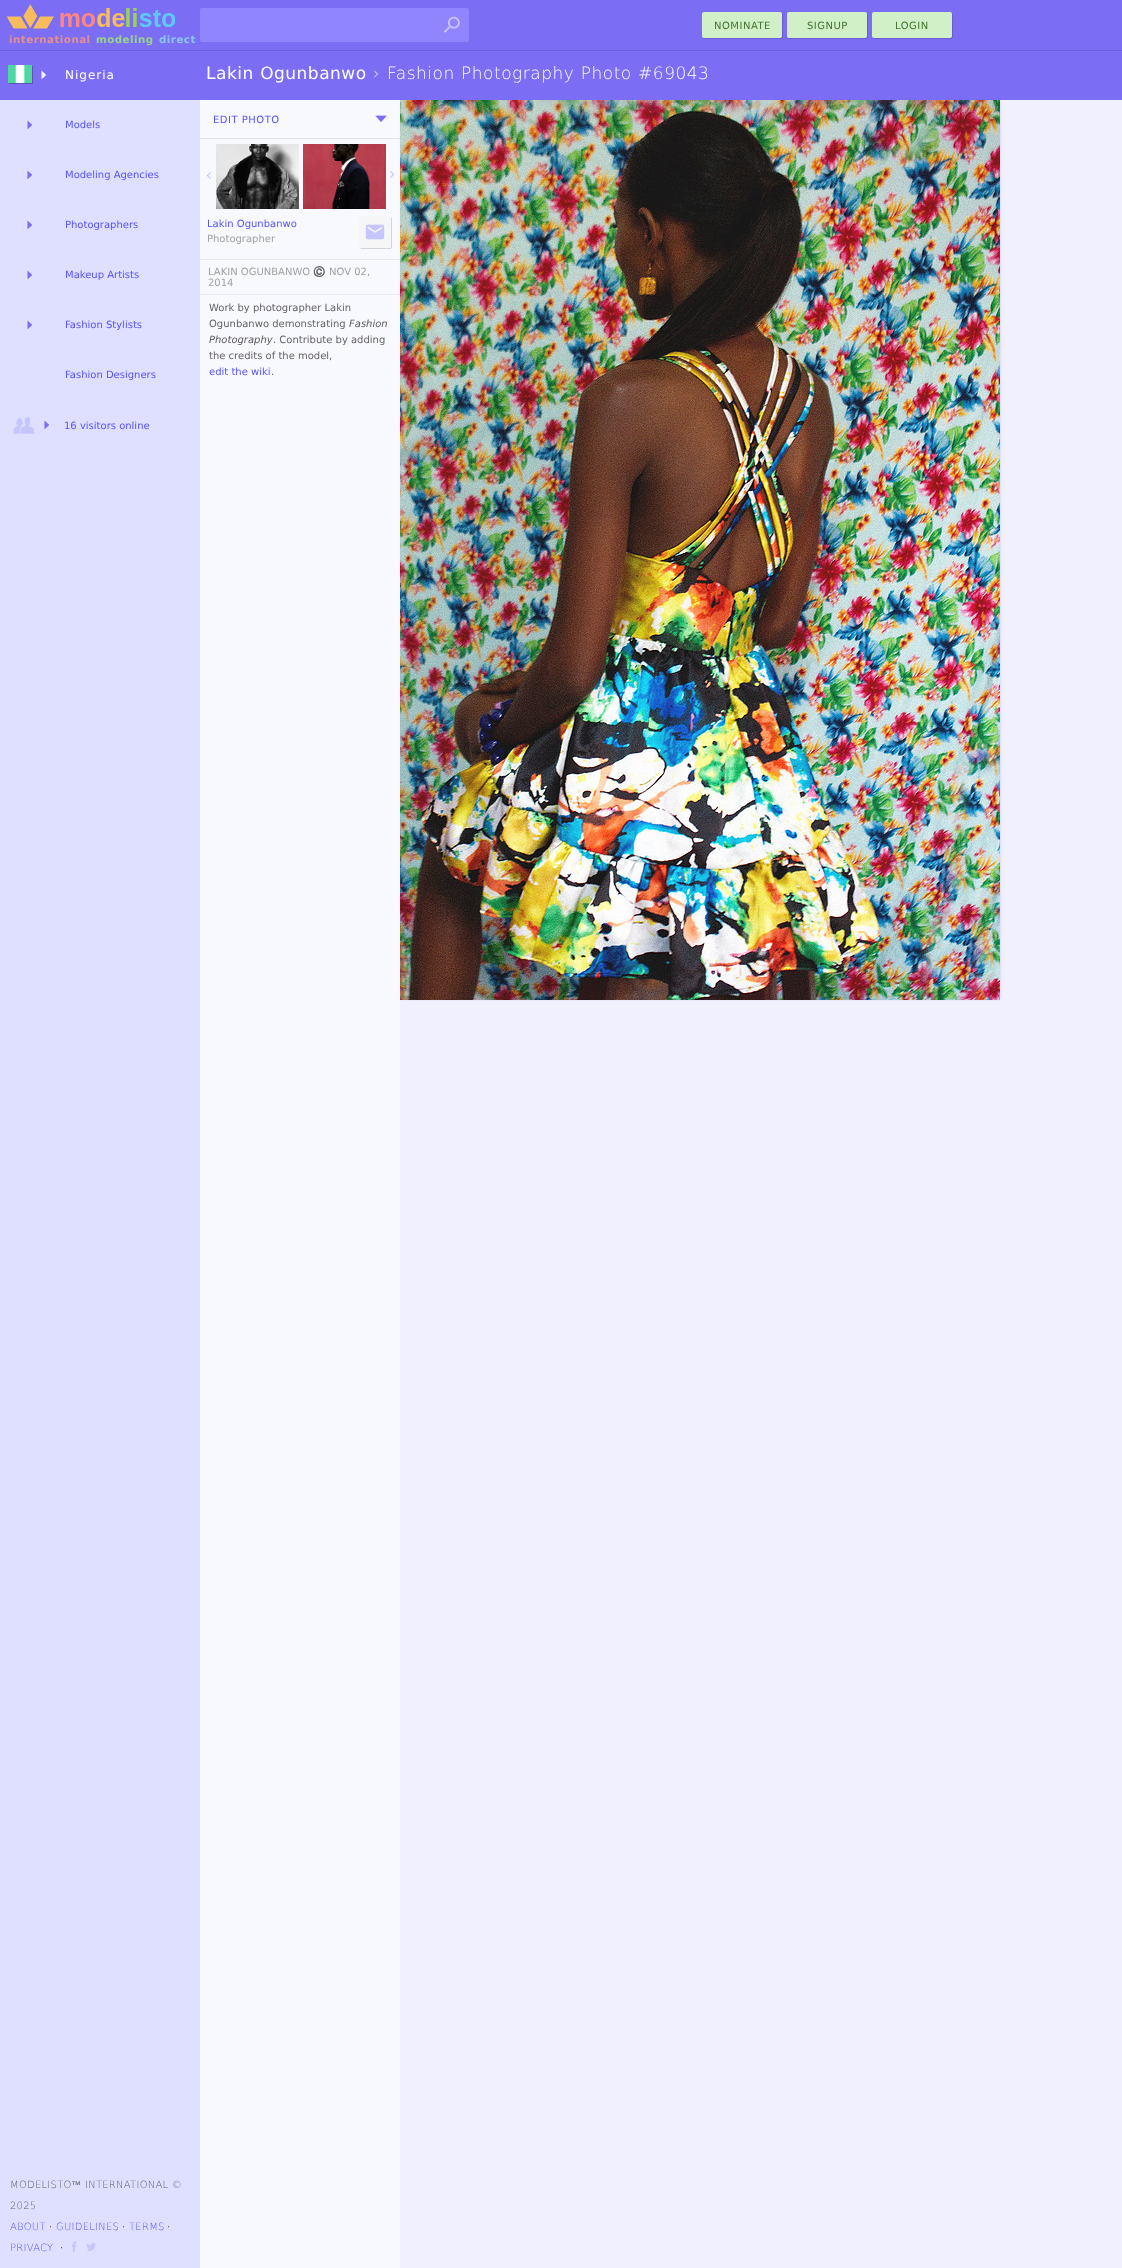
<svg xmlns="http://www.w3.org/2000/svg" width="1122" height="2268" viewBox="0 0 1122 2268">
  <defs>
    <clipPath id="clip1"><path d="M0 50h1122v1H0z"/></clipPath>
  </defs>
  <rect width="100%" height="100%" fill="#f0f0ff"/>
  <path d="M0 0h1122v100H0z" fill="#7b6ef5"/>
  <g clip-path="url(#clip1)">
    <path d="M0 1h1122v50H0z" fill="#0000001a" filter="blur(0.5px)"/>
  </g>
  <rect x="200" y="8" width="269" height="34" rx="2" fill="#9a8fffb3"/>
  <image x="443" y="16" width="17" height="17" href="img/1.png"/>
  <path d="M703 38L704 39H768C786 39 783 42 783 26C783 24 784 14 782 13V29C782 41 783 38 767 38Z" fill="#695ed0"/>
  <rect x="702" y="12" width="80" height="26" rx="2" fill="#d2f0c7"/>
  <path d="M788 38L789 39H853C871 39 868 42 868 26C868 24 869 14 867 13V29C867 41 868 38 852 38Z" fill="#695ed0"/>
  <rect x="787" y="12" width="80" height="26" rx="2" fill="#d2f0c7"/>
  <path d="M873 38L874 39H938C956 39 953 42 953 26C953 24 954 14 952 13V29C952 41 953 38 937 38Z" fill="#695ed0"/>
  <rect x="872" y="12" width="80" height="26" rx="2" fill="#d2f0c7"/>
  <image x="6" y="4" width="170" height="25" href="img/2.png"/>
  <path d="M0 100h200v2168H0z" fill="#dfdfff"/>
  <path d="M9 66h24v18H9z" fill="#00000040" filter="blur(0.5px)"/>
  <image x="8" y="65" width="24" height="18" href="img/3.png"/>
  <image x="41" y="70" width="6" height="10" href="img/4.png"/>
  <image x="27" y="120" width="6" height="10" href="img/5.png"/>
  <image x="27" y="170" width="6" height="10" href="img/5.png"/>
  <image x="27" y="220" width="6" height="10" href="img/5.png"/>
  <image x="27" y="270" width="6" height="10" href="img/5.png"/>
  <image x="27" y="320" width="6" height="10" href="img/5.png"/>
  <image x="13" y="417" width="22" height="17" href="img/6.png"/>
  <image x="44" y="420" width="6" height="10" href="img/5.png"/>
  <image x="71" y="2241" width="6" height="12" href="img/7.png"/>
  <image x="87" y="2243" width="9" height="8" href="img/8.png"/>
  <path d="M200 100h200v2168H200z" fill="#f8f8ff"/>
  <path d="M200 138h200v1H200z" fill="#e5e5e5"/>
  <path d="M200 259h200v1H200z" fill="#ebebeb"/>
  <path d="M200 294h200v1H200z" fill="#ebebeb"/>
  <path d="M402 101h598v898H402z" fill="#0517a12e" filter="blur(1.5px)"/>
  <path d="M403 99h554v1H403z" fill="#7b6ef5"/>
  <image x="375" y="115" width="12" height="7" href="img/9.png"/>
  <image x="206" y="172" width="5" height="7" href="img/10.png"/>
  <image x="216" y="144" width="83" height="65" href="img/11.png"/>
  <image x="303" y="144" width="83" height="65" href="img/12.png"/>
  <image x="390" y="171" width="5" height="7" href="img/13.png"/>
  <path d="M360 248C360.5 248.5 361 249 362 249H390C391 249 392 248 392 247V219C392 218 391.5 217.5 391 217V246C391 249 385.5 248 384.5 248Z" fill="#d3d3d9"/>
  <rect x="359" y="216" width="32" height="32" rx="2" fill="#f6f6f6"/>
  <image x="365" y="224" width="20" height="16" href="img/14.png"/>
  <image x="400" y="100" width="600" height="900" href="img/15.png"/>
  <g font-family="DejaVu Sans" font-size="10" letter-spacing="0.5" fill="#427431">
    <text x="714" y="29">NOMINATE</text>
    <text x="807" y="29">SIGNUP</text>
    <text x="895" y="29">LOGIN</text>
  </g>
  <text x="9" y="43" font-family="DejaVu Sans" font-size="10.25" font-weight="bold" letter-spacing="0.5" fill="#e28f8f">international</text>
  <text x="96" y="43" font-family="DejaVu Sans" font-size="10.25" font-weight="bold" letter-spacing="0.5" fill="#98d387">modeling</text>
  <text x="159" y="43" font-family="DejaVu Sans" font-size="10.25" font-weight="bold" letter-spacing="0.5" fill="#8ac6ea">direct</text>
  <text x="65" y="79" font-family="DejaVu Sans" font-size="12" letter-spacing="1" fill="#fff">Nigeria</text>
  <g font-family="DejaVu Sans" font-size="10" fill="#5654ff">
    <text x="65" y="128">Models</text>
    <text x="65" y="178">Modeling Agencies</text>
    <text x="65" y="228">Photographers</text>
    <text x="65" y="278">Makeup Artists</text>
    <text x="65" y="328">Fashion Stylists</text>
    <text x="65" y="378">Fashion Designers</text>
    <text x="64" y="429">16 visitors online</text>
  </g>
  <text x="10" y="2188" font-family="DejaVu Sans" font-size="10" font-weight="200" letter-spacing="0.25" fill="#646464">MODELISTO</text>
  <text x="71" y="2188" font-family="Liberation Sans" font-size="10" letter-spacing="0.25" fill="#646464">™</text>
  <g font-family="DejaVu Sans" font-size="10" font-weight="200" letter-spacing="0.25" fill="#646464">
    <text x="85" y="2188">INTERNATIONAL ©</text>
    <text x="10" y="2209">2025</text>
  </g>
  <text x="10" y="2230" font-family="DejaVu Sans" font-size="10" font-weight="200" letter-spacing="0.25" fill="#5654ff">ABOUT</text>
  <text x="49" y="2230" font-family="DejaVu Sans" font-size="10" letter-spacing="0.25" fill="#646464">⋅</text>
  <text x="56" y="2230" font-family="DejaVu Sans" font-size="10" font-weight="200" letter-spacing="0.25" fill="#5654ff">GUIDELINES</text>
  <text x="122" y="2230" font-family="DejaVu Sans" font-size="10" letter-spacing="0.25" fill="#646464">⋅</text>
  <text x="129" y="2230" font-family="DejaVu Sans" font-size="10" font-weight="200" letter-spacing="0.25" fill="#5654ff">TERMS</text>
  <text x="167" y="2230" font-family="DejaVu Sans" font-size="10" letter-spacing="0.25" fill="#646464">⋅</text>
  <text x="10" y="2251" font-family="DejaVu Sans" font-size="10" font-weight="200" letter-spacing="0.25" fill="#5654ff">PRIVACY</text>
  <text x="60" y="2251" font-family="DejaVu Sans" font-size="10" letter-spacing="0.25" fill="#646464">⋅</text>
  <text x="206" y="79" word-spacing="0.5" font-family="DejaVu Sans" font-size="17" letter-spacing="0.5" fill="#fff">Lakin Ogunbanwo</text>
  <text x="373" y="79" font-family="DejaVu Sans" font-size="17" font-weight="200" letter-spacing="0.5" fill="#dfdfff">›</text>
  <text x="387" y="79" word-spacing="0.5" font-family="DejaVu Sans" font-size="17" font-weight="200" letter-spacing="0.5" fill="#fff">Fashion Photography Photo #69043</text>
  <text x="213" y="123" font-family="DejaVu Sans" font-size="10" letter-spacing="0.5" fill="#5654ff">EDIT PHOTO</text>
  <text x="207" y="227" font-family="DejaVu Sans" font-size="10" fill="#5654ff">Lakin Ogunbanwo</text>
  <g font-family="DejaVu Sans" font-size="10" fill="#a2a2a2">
    <text x="207" y="242">Photographer</text>
    <text x="208" y="275">LAKIN OGUNBANWO</text>
  </g>
  <text x="313" y="275" font-family="Noto Color Emoji" font-size="10" fill="#a2a2a2">©️</text>
  <g font-family="DejaVu Sans" font-size="10" fill="#a2a2a2">
    <text x="329" y="275">NOV 02,</text>
    <text x="208" y="286">2014</text>
  </g>
  <g font-family="DejaVu Sans" font-size="10" fill="#646464">
    <text x="209" y="311">Work by photographer Lakin</text>
    <text x="209" y="327">Ogunbanwo demonstrating</text>
  </g>
  <g font-family="DejaVu Sans" font-size="10" font-style="italic" fill="#5a5a5a">
    <text x="349" y="327">Fashion</text>
    <text x="209" y="343">Photography</text>
  </g>
  <g font-family="DejaVu Sans" font-size="10" fill="#646464">
    <text x="273" y="343">. Contribute by adding</text>
    <text x="209" y="359">the credits of the model,</text>
  </g>
  <text x="209" y="375" font-family="DejaVu Sans" font-size="10" fill="#5654ff">edit the wiki</text>
  <text x="271" y="375" font-family="DejaVu Sans" font-size="10" fill="#646464">.</text>
</svg>
